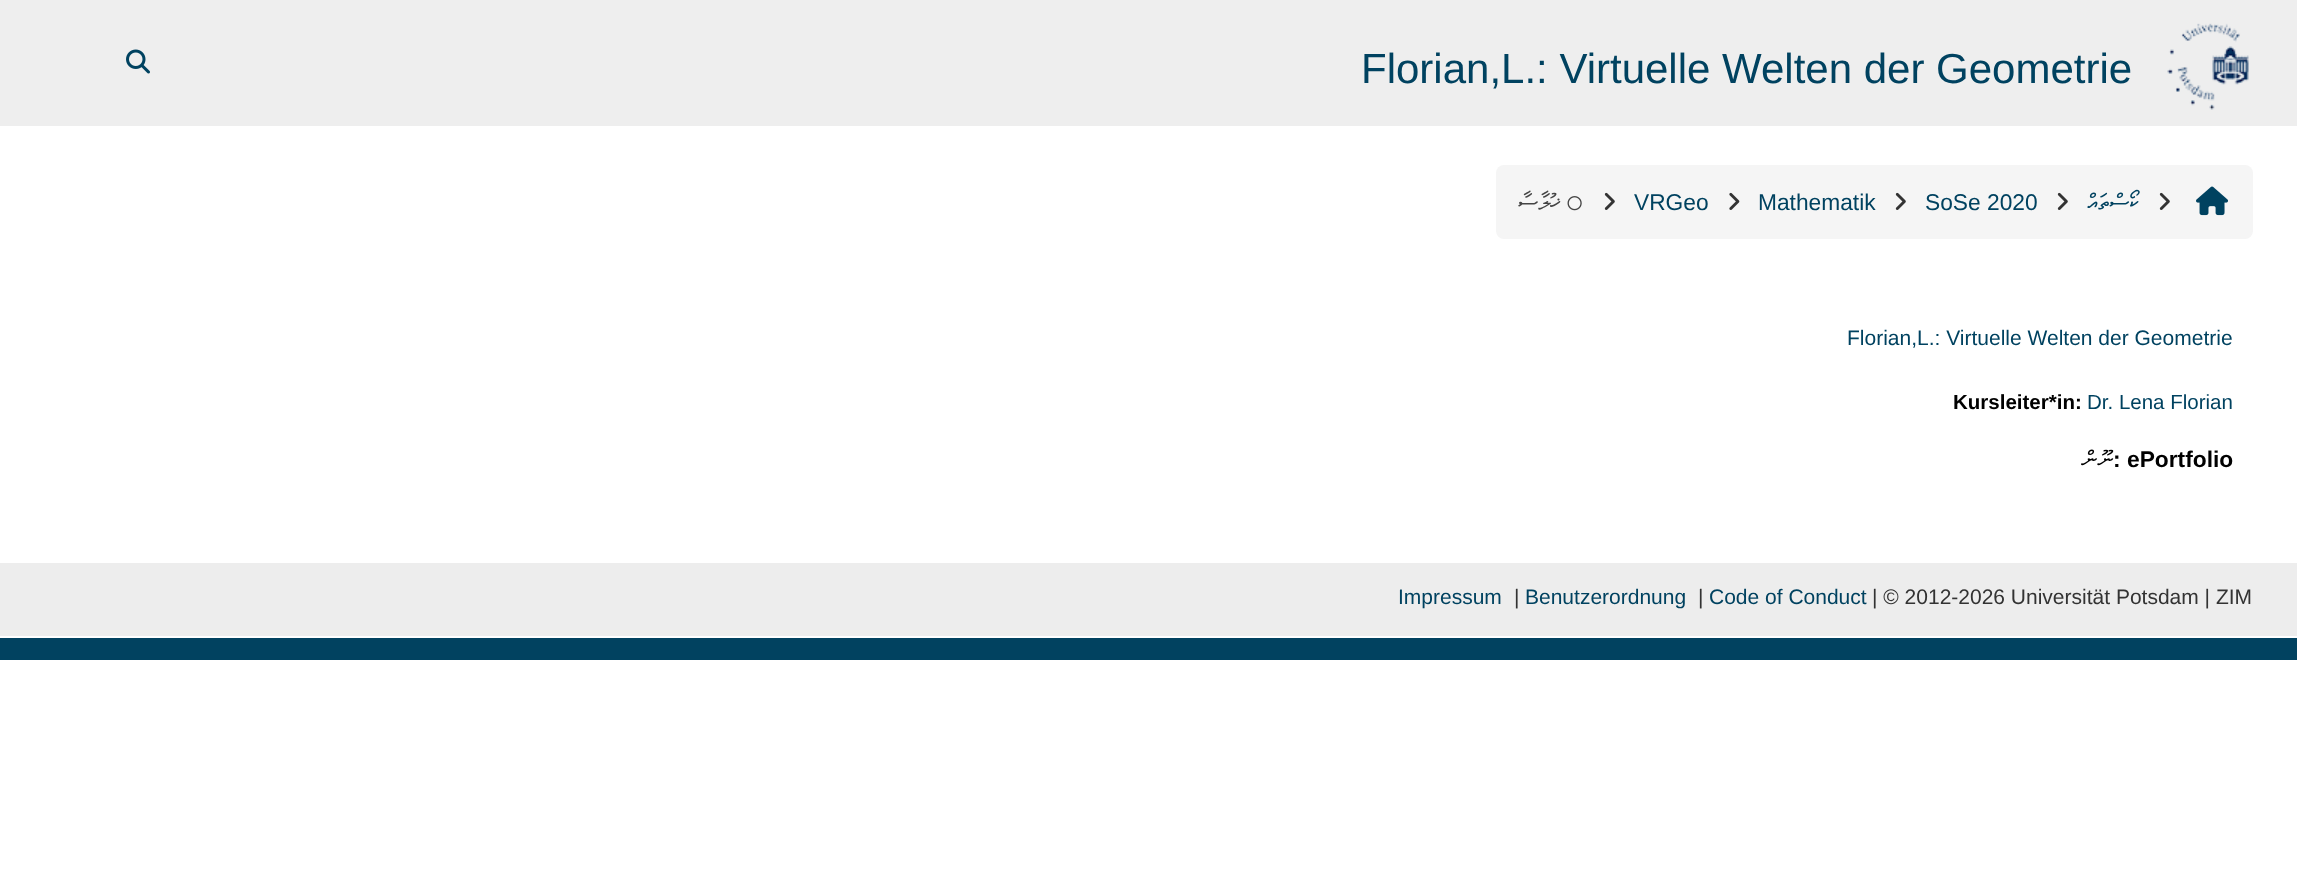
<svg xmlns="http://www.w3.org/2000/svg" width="2297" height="870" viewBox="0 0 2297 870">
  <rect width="100%" height="100%" fill="#fff"/>
  <path d="M0 0h2297v126H0z" fill="#eee"/>
  <image x="126" y="49" width="24" height="25" href="img/1.png"/>
  <image x="2167" y="23" width="82" height="87" href="img/2.png"/>
  <rect x="1496" y="165" width="757" height="74" rx="8" fill="#f5f5f5"/>
  <image x="1567" y="196" width="15" height="15" href="img/3.png"/>
  <image x="1604" y="192" width="11" height="18" href="img/4.png"/>
  <image x="1729" y="192" width="11" height="18" href="img/5.png"/>
  <image x="1895" y="192" width="11" height="18" href="img/4.png"/>
  <image x="2057" y="192" width="11" height="18" href="img/4.png"/>
  <image x="2159" y="192" width="11" height="18" href="img/4.png"/>
  <image x="2196" y="186" width="32" height="30" href="img/6.png"/>
  <path d="M0 563h2297v73H0z" fill="#ededed"/>
  <path d="M0 638h2297v22H0z" fill="#014260"/>
  <text x="1361" y="83" font-family="Liberation Sans" font-size="42" fill="#004260">Florian,L.: Virtuelle Welten der Geometrie</text>
  <text x="1560" y="210" font-family="FreeSerif" font-size="22.75" direction="rtl" fill="#444">ޚުލާސާ</text>
  <g font-family="Liberation Sans" font-size="22.75" fill="#004260">
    <text x="1634" y="210">VRGeo</text>
    <text x="1758" y="210">Mathematik</text>
    <text x="1925" y="210">SoSe 2020</text>
  </g>
  <text x="2139" y="210" font-family="FreeSerif" font-size="22.75" direction="rtl" fill="#004260">ކޯސްތައް</text>
  <text x="1847" y="345" font-family="Liberation Sans" font-size="21" fill="#004260">Florian,L.: Virtuelle Welten der Geometrie</text>
  <text x="1953" y="409" font-family="Liberation Sans" font-size="20.5" font-weight="bold" fill="#000">Kursleiter*in:</text>
  <text x="2087" y="409" font-family="Liberation Sans" font-size="20.5" fill="#004260">Dr. Lena Florian</text>
  <text x="2113" y="467" font-family="FreeSerif" font-size="22.75" direction="rtl" fill="#000">ނޫން</text>
  <g font-family="Liberation Sans" font-size="22.75" font-weight="bold" fill="#000">
    <text x="2113" y="467">:</text>
    <text x="2127" y="467">ePortfolio</text>
  </g>
  <text x="1398" y="604" font-family="Liberation Sans" font-size="21" fill="#004260">Impressum</text>
  <text x="1514" y="604" font-family="Liberation Sans" font-size="21" fill="#333">|</text>
  <text x="1525" y="604" font-family="Liberation Sans" font-size="21" fill="#004260">Benutzerordnung</text>
  <text x="1698" y="604" font-family="Liberation Sans" font-size="21" fill="#333">|</text>
  <text x="1709" y="604" font-family="Liberation Sans" font-size="21" fill="#004260">Code of Conduct</text>
  <text x="1872" y="604" font-family="Liberation Sans" font-size="21" fill="#333">| © 2012-2026 Universität Potsdam | ZIM</text>
</svg>
